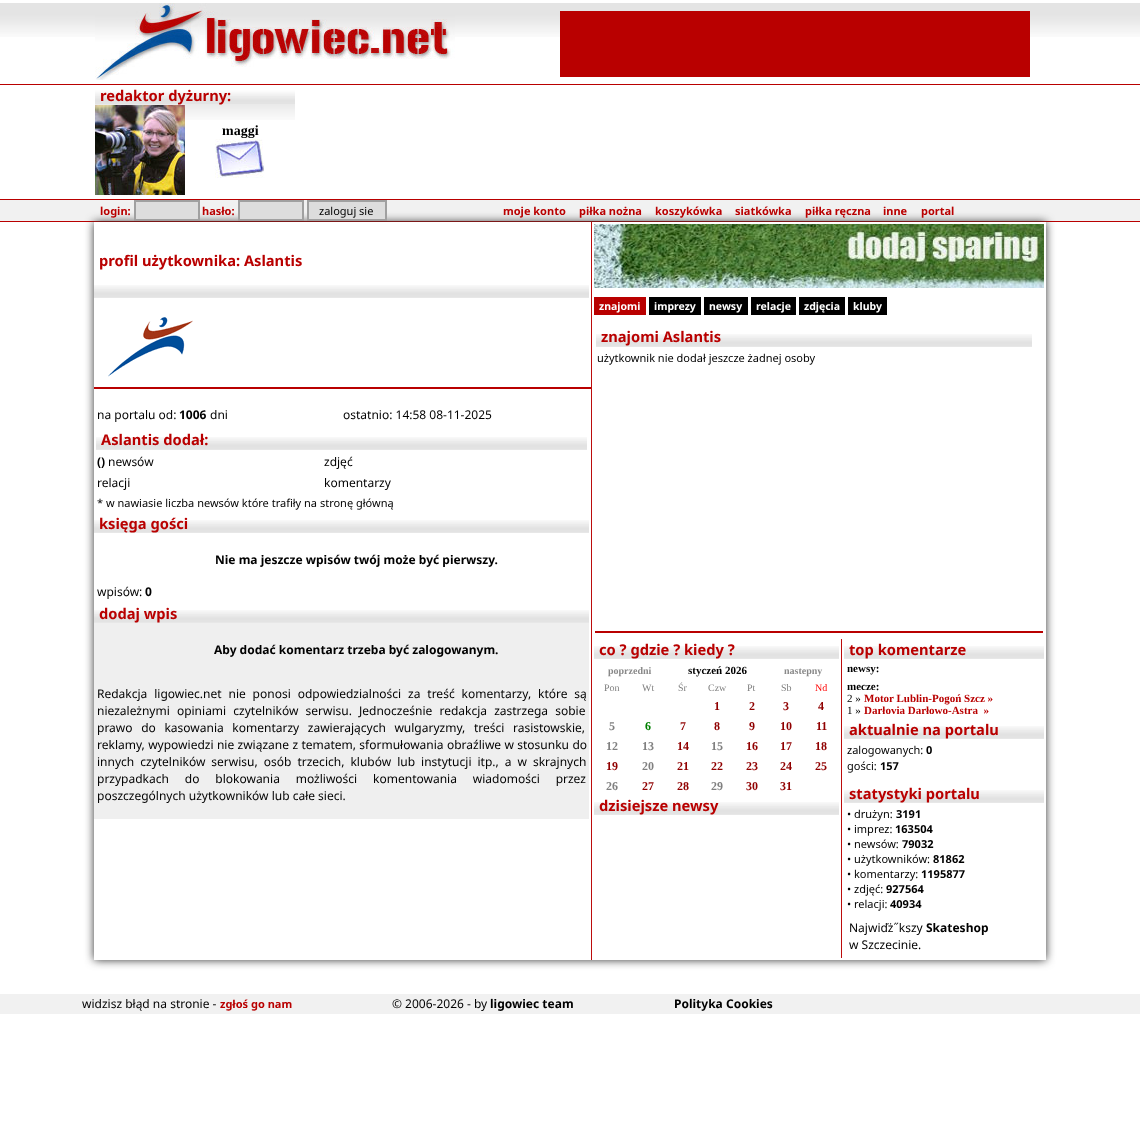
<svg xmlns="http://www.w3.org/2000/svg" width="1140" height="1125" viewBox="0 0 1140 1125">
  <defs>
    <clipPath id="clip1"><path d="M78 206H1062V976H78ZM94 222H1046V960H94Z" clip-rule="evenodd"/></clipPath>
  </defs>
  <rect width="100%" height="100%" fill="#fff"/>
  <image x="0" y="3" width="1140" height="34" href="img/1.png"/>
  <image x="95" y="3" width="360" height="77" href="img/2.png"/>
  <path d="M560 11h470v66H560z" fill="#b90000"/>
  <path d="M0 84h1140v1H0z" fill="#b90000"/>
  <image x="95" y="104" width="200" height="16" href="img/3.png"/>
  <image x="95" y="85" width="200" height="19" href="img/4.png"/>
  <image x="95" y="105" width="90" height="90" href="img/5.png"/>
  <image x="215" y="139" width="50" height="39" href="img/6.png"/>
  <path d="M0 200h1140v21H0z" fill="#f1f1f1"/>
  <path d="M0 199h1140v1H0z" fill="#b90000"/>
  <path d="M0 221h1140v1H0z" fill="#b90000"/>
  <g clip-path="url(#clip1)">
    <path d="M94 222h952v738H94z" fill="#333" filter="blur(5px)"/>
  </g>
  <path d="M135 201h64v19H135z" fill="#ddd" stroke="#a0a0a0" stroke-width="2"/>
  <path d="M239 201h64v19H239z" fill="#ddd" stroke="#a0a0a0" stroke-width="2"/>
  <path d="M308 201h78v19H308z" fill="#ddd" stroke="#a0a0a0" stroke-width="2"/>
  <image x="94" y="285" width="446" height="13" href="img/7.png"/>
  <image x="540" y="285" width="49" height="13" href="img/8.png"/>
  <image x="108" y="317" width="85" height="60" href="img/9.png"/>
  <path d="M94 387h497v2H94z" fill="#b90000"/>
  <image x="96" y="437" width="491" height="13" href="img/10.png"/>
  <image x="94" y="520" width="495" height="13" href="img/11.png"/>
  <image x="94" y="610" width="495" height="13" href="img/11.png"/>
  <path d="M94 623h495v196H94z" fill="#efefef"/>
  <path d="M591 222h1v738H591z" fill="#bc0c0c"/>
  <image x="594" y="224" width="450" height="64" href="img/12.png"/>
  <path d="M594 297h52v18H594z" fill="#b90000"/>
  <path d="M649 297h52v18H649z" fill="#000"/>
  <path d="M704 297h44v18H704z" fill="#000"/>
  <path d="M751 297h45v18H751z" fill="#000"/>
  <path d="M799 297h46v18H799z" fill="#000"/>
  <path d="M848 297h39v18H848z" fill="#000"/>
  <image x="596" y="334" width="436" height="13" href="img/13.png"/>
  <path d="M595 631h448v2H595z" fill="#b90000"/>
  <image x="594" y="646" width="245" height="13" href="img/14.png"/>
  <image x="594" y="802" width="245" height="13" href="img/14.png"/>
  <path d="M841 639h1v319H841z" fill="#bc0c0c"/>
  <image x="844" y="646" width="200" height="13" href="img/15.png"/>
  <image x="844" y="726" width="200" height="13" href="img/15.png"/>
  <image x="844" y="790" width="200" height="13" href="img/15.png"/>
  <path d="M0 994h1140v20H0z" fill="#f1f1f1"/>
  <text x="100" y="101" font-family="Noto Sans" font-size="14.7" font-weight="bold" fill="#b90000">redaktor dyżurny:</text>
  <text x="222" y="135" font-family="Liberation Serif" font-size="14" font-weight="bold" fill="#000">maggi</text>
  <g font-family="Noto Sans" font-size="11" font-weight="bold" fill="#b90000">
    <text x="100" y="215">login:</text>
    <text x="202" y="215">hasło:</text>
  </g>
  <text x="319" y="215" font-family="Noto Sans" font-size="11" fill="#000">zaloguj sie</text>
  <g font-family="Noto Sans" font-size="11" font-weight="bold" fill="#b90000">
    <text x="503" y="215">moje konto</text>
    <text x="579" y="215">piłka nożna</text>
    <text x="655" y="215">koszykówka</text>
    <text x="735" y="215">siatkówka</text>
    <text x="805" y="215">piłka ręczna</text>
    <text x="883" y="215">inne</text>
    <text x="921" y="215">portal</text>
  </g>
  <text x="99" y="266" font-family="Noto Sans" font-size="14.7" font-weight="bold" fill="#b90000">profil użytkownika: Aslantis</text>
  <text x="97" y="419" font-family="Noto Sans" font-size="12" fill="#000">na portalu od:</text>
  <text x="179" y="419" font-family="Noto Sans" font-size="12" font-weight="bold" fill="#000">1006</text>
  <g font-family="Noto Sans" font-size="12" fill="#000">
    <text x="210" y="419">dni</text>
    <text x="343" y="419">ostatnio: 14:58 08-11-2025</text>
  </g>
  <text x="101" y="445" font-family="Noto Sans" font-size="14.7" font-weight="bold" fill="#b90000">Aslantis dodał:</text>
  <text x="97" y="466" font-family="Noto Sans" font-size="12" font-weight="bold" fill="#000">()</text>
  <g font-family="Noto Sans" font-size="12" fill="#000">
    <text x="108" y="466">newsów</text>
    <text x="324" y="466">zdjęć</text>
    <text x="97" y="487">relacji</text>
    <text x="324" y="487">komentarzy</text>
  </g>
  <text x="97" y="507" font-family="Noto Sans" font-size="11" fill="#000">* w nawiasie liczba newsów które trafiły na stronę główną</text>
  <text x="99" y="529" font-family="Noto Sans" font-size="14.7" font-weight="bold" fill="#b90000">księga gości</text>
  <text x="215" y="564" font-family="Noto Sans" font-size="12" font-weight="bold" fill="#000">Nie ma jeszcze wpisów twój może być pierwszy.</text>
  <text x="97" y="596" font-family="Noto Sans" font-size="12" fill="#000">wpisów:</text>
  <text x="145" y="596" font-family="Noto Sans" font-size="12" font-weight="bold" fill="#000">0</text>
  <text x="99" y="619" font-family="Noto Sans" font-size="14.7" font-weight="bold" fill="#b90000">dodaj wpis</text>
  <text x="214" y="654" font-family="Noto Sans" font-size="12" font-weight="bold" fill="#000">Aby dodać komentarz trzeba być zalogowanym.</text>
  <g font-family="Noto Sans" font-size="12" fill="#000">
    <text x="97" y="698" word-spacing="3.75">Redakcja ligowiec.net nie ponosi odpowiedzialności za treść komentarzy, które są</text>
    <text x="97" y="715" word-spacing="4">niezależnymi opiniami czytelników serwisu. Jednocześnie redakcja zastrzega sobie</text>
    <text x="97" y="732" word-spacing="5.5">prawo do kasowania komentarzy zawierających wulgaryzmy, treści rasistowskie,</text>
    <text x="97" y="749" word-spacing="0.25">reklamy, wypowiedzi nie związane z tematem, sformułowania obraźliwe w stosunku do</text>
    <text x="97" y="766" word-spacing="2.9">innych czytelników serwisu, osób trzecich, klubów lub instytucji itp., a w skrajnych</text>
    <text x="97" y="783" word-spacing="12.75">przypadkach do blokowania możliwości komentowania wiadomości przez</text>
    <text x="97" y="800">poszczególnych użytkowników lub całe sieci.</text>
  </g>
  <g font-family="Noto Sans" font-size="10.5" font-weight="bold" fill="#fff">
    <text x="599" y="310">znajomi</text>
    <text x="654" y="310">imprezy</text>
    <text x="709" y="310">newsy</text>
    <text x="756" y="310">relacje</text>
    <text x="804" y="310">zdjęcia</text>
    <text x="853" y="310">kluby</text>
  </g>
  <text x="601" y="342" font-family="Noto Sans" font-size="14.7" font-weight="bold" fill="#b90000">znajomi Aslantis</text>
  <text x="597" y="362" font-family="Noto Sans" font-size="11" fill="#000">użytkownik nie dodał jeszcze żadnej osoby</text>
  <text x="599" y="655" font-family="Noto Sans" font-size="14.7" font-weight="bold" fill="#b90000">co ? gdzie ? kiedy ?</text>
  <text x="608" y="674" font-family="Liberation Serif" font-size="10" font-weight="bold" fill="#898989">poprzedni</text>
  <text x="688" y="674" font-family="Liberation Serif" font-size="11" font-weight="bold" fill="#000">styczeń 2026</text>
  <text x="784" y="674" font-family="Liberation Serif" font-size="10" font-weight="bold" fill="#898989">nastepny</text>
  <g font-family="Liberation Serif" font-size="10" fill="#808080">
    <text x="604" y="691">Pon</text>
    <text x="642" y="691">Wt</text>
    <text x="678" y="691">Śr</text>
    <text x="708" y="691">Czw</text>
    <text x="747" y="691">Pt</text>
    <text x="781" y="691">Sb</text>
  </g>
  <text x="815" y="691" font-family="Liberation Serif" font-size="10" fill="#f00">Nd</text>
  <g font-family="Liberation Serif" font-size="12" font-weight="bold" fill="#900000">
    <text x="714" y="710">1</text>
    <text x="749" y="710">2</text>
    <text x="783" y="710">3</text>
    <text x="818" y="710">4</text>
  </g>
  <text x="609" y="730" font-family="Liberation Serif" font-size="12" font-weight="bold" fill="#808080">5</text>
  <text x="645" y="730" font-family="Liberation Serif" font-size="12" font-weight="bold" fill="#008000">6</text>
  <g font-family="Liberation Serif" font-size="12" font-weight="bold" fill="#900000">
    <text x="680" y="730">7</text>
    <text x="714" y="730">8</text>
    <text x="749" y="730">9</text>
    <text x="780" y="730">10</text>
    <text x="816" y="730">11</text>
  </g>
  <g font-family="Liberation Serif" font-size="12" font-weight="bold" fill="#808080">
    <text x="606" y="750">12</text>
    <text x="642" y="750">13</text>
  </g>
  <text x="677" y="750" font-family="Liberation Serif" font-size="12" font-weight="bold" fill="#900000">14</text>
  <text x="711" y="750" font-family="Liberation Serif" font-size="12" font-weight="bold" fill="#808080">15</text>
  <g font-family="Liberation Serif" font-size="12" font-weight="bold" fill="#900000">
    <text x="746" y="750">16</text>
    <text x="780" y="750">17</text>
    <text x="815" y="750">18</text>
    <text x="606" y="770">19</text>
  </g>
  <text x="642" y="770" font-family="Liberation Serif" font-size="12" font-weight="bold" fill="#808080">20</text>
  <g font-family="Liberation Serif" font-size="12" font-weight="bold" fill="#900000">
    <text x="677" y="770">21</text>
    <text x="711" y="770">22</text>
    <text x="746" y="770">23</text>
    <text x="780" y="770">24</text>
    <text x="815" y="770">25</text>
  </g>
  <text x="606" y="790" font-family="Liberation Serif" font-size="12" font-weight="bold" fill="#808080">26</text>
  <g font-family="Liberation Serif" font-size="12" font-weight="bold" fill="#900000">
    <text x="642" y="790">27</text>
    <text x="677" y="790">28</text>
  </g>
  <text x="711" y="790" font-family="Liberation Serif" font-size="12" font-weight="bold" fill="#808080">29</text>
  <g font-family="Liberation Serif" font-size="12" font-weight="bold" fill="#900000">
    <text x="746" y="790">30</text>
    <text x="780" y="790">31</text>
  </g>
  <g font-family="Noto Sans" font-size="14.7" font-weight="bold" fill="#b90000">
    <text x="599" y="811">dzisiejsze newsy</text>
    <text x="849" y="655">top komentarze</text>
  </g>
  <g font-family="Liberation Serif" font-size="11" font-weight="bold" fill="#000">
    <text x="847" y="672">newsy:</text>
    <text x="847" y="690">mecze:</text>
  </g>
  <text x="847" y="702" font-family="Liberation Serif" font-size="11" fill="#000">2 »</text>
  <text x="864" y="702" font-family="Liberation Serif" font-size="11" font-weight="bold" fill="#b90000">Motor Lublin-Pogoń Szcz »</text>
  <text x="847" y="714" font-family="Liberation Serif" font-size="11" fill="#000">1 »</text>
  <text x="864" y="714" font-family="Liberation Serif" font-size="11" font-weight="bold" fill="#b90000" xml:space="preserve">Darłovia Darłowo-Astra  »</text>
  <text x="849" y="735" font-family="Noto Sans" font-size="14.7" font-weight="bold" fill="#b90000">aktualnie na portalu</text>
  <text x="847" y="754" font-family="Noto Sans" font-size="11" fill="#000">zalogowanych:</text>
  <text x="926" y="754" font-family="Noto Sans" font-size="11" font-weight="bold" fill="#000">0</text>
  <text x="847" y="770" font-family="Noto Sans" font-size="11" fill="#000">gości:</text>
  <text x="880" y="770" font-family="Noto Sans" font-size="11" font-weight="bold" fill="#000">157</text>
  <text x="849" y="799" font-family="Noto Sans" font-size="14.7" font-weight="bold" fill="#b90000">statystyki portalu</text>
  <text x="847" y="818" font-family="Noto Sans" font-size="11" fill="#000">• drużyn:</text>
  <text x="896" y="818" font-family="Noto Sans" font-size="11" font-weight="bold" fill="#000">3191</text>
  <text x="847" y="833" font-family="Noto Sans" font-size="11" fill="#000">• imprez:</text>
  <text x="895" y="833" font-family="Noto Sans" font-size="11" font-weight="bold" fill="#000">163504</text>
  <text x="847" y="848" font-family="Noto Sans" font-size="11" fill="#000">• newsów:</text>
  <text x="902" y="848" font-family="Noto Sans" font-size="11" font-weight="bold" fill="#000">79032</text>
  <text x="847" y="863" font-family="Noto Sans" font-size="11" fill="#000">• użytkowników:</text>
  <text x="933" y="863" font-family="Noto Sans" font-size="11" font-weight="bold" fill="#000">81862</text>
  <text x="847" y="878" font-family="Noto Sans" font-size="11" fill="#000">• komentarzy:</text>
  <text x="921" y="878" font-family="Noto Sans" font-size="11" font-weight="bold" fill="#000">1195877</text>
  <text x="847" y="893" font-family="Noto Sans" font-size="11" fill="#000">• zdjęć:</text>
  <text x="886" y="893" font-family="Noto Sans" font-size="11" font-weight="bold" fill="#000">927564</text>
  <text x="847" y="908" font-family="Noto Sans" font-size="11" fill="#000">• relacji:</text>
  <text x="890" y="908" font-family="Noto Sans" font-size="11" font-weight="bold" fill="#000">40934</text>
  <text x="849" y="932" font-family="Noto Sans" font-size="12" fill="#000">Najwiďż˝kszy</text>
  <text x="926" y="932" font-family="Noto Sans" font-size="12" font-weight="bold" fill="#000">Skateshop</text>
  <g font-family="Noto Sans" font-size="12" fill="#000">
    <text x="849" y="949">w Szczecinie.</text>
    <text x="82" y="1008">widzisz błąd na stronie -</text>
  </g>
  <text x="220" y="1008" font-family="Noto Sans" font-size="11" font-weight="bold" fill="#b90000">zgłoś go nam</text>
  <text x="392" y="1008" font-family="Noto Sans" font-size="12" fill="#000">© 2006-2026 - by</text>
  <g font-family="Noto Sans" font-size="12" font-weight="bold" fill="#000">
    <text x="490" y="1008">ligowiec team</text>
    <text x="674" y="1008">Polityka Cookies</text>
  </g>
</svg>
